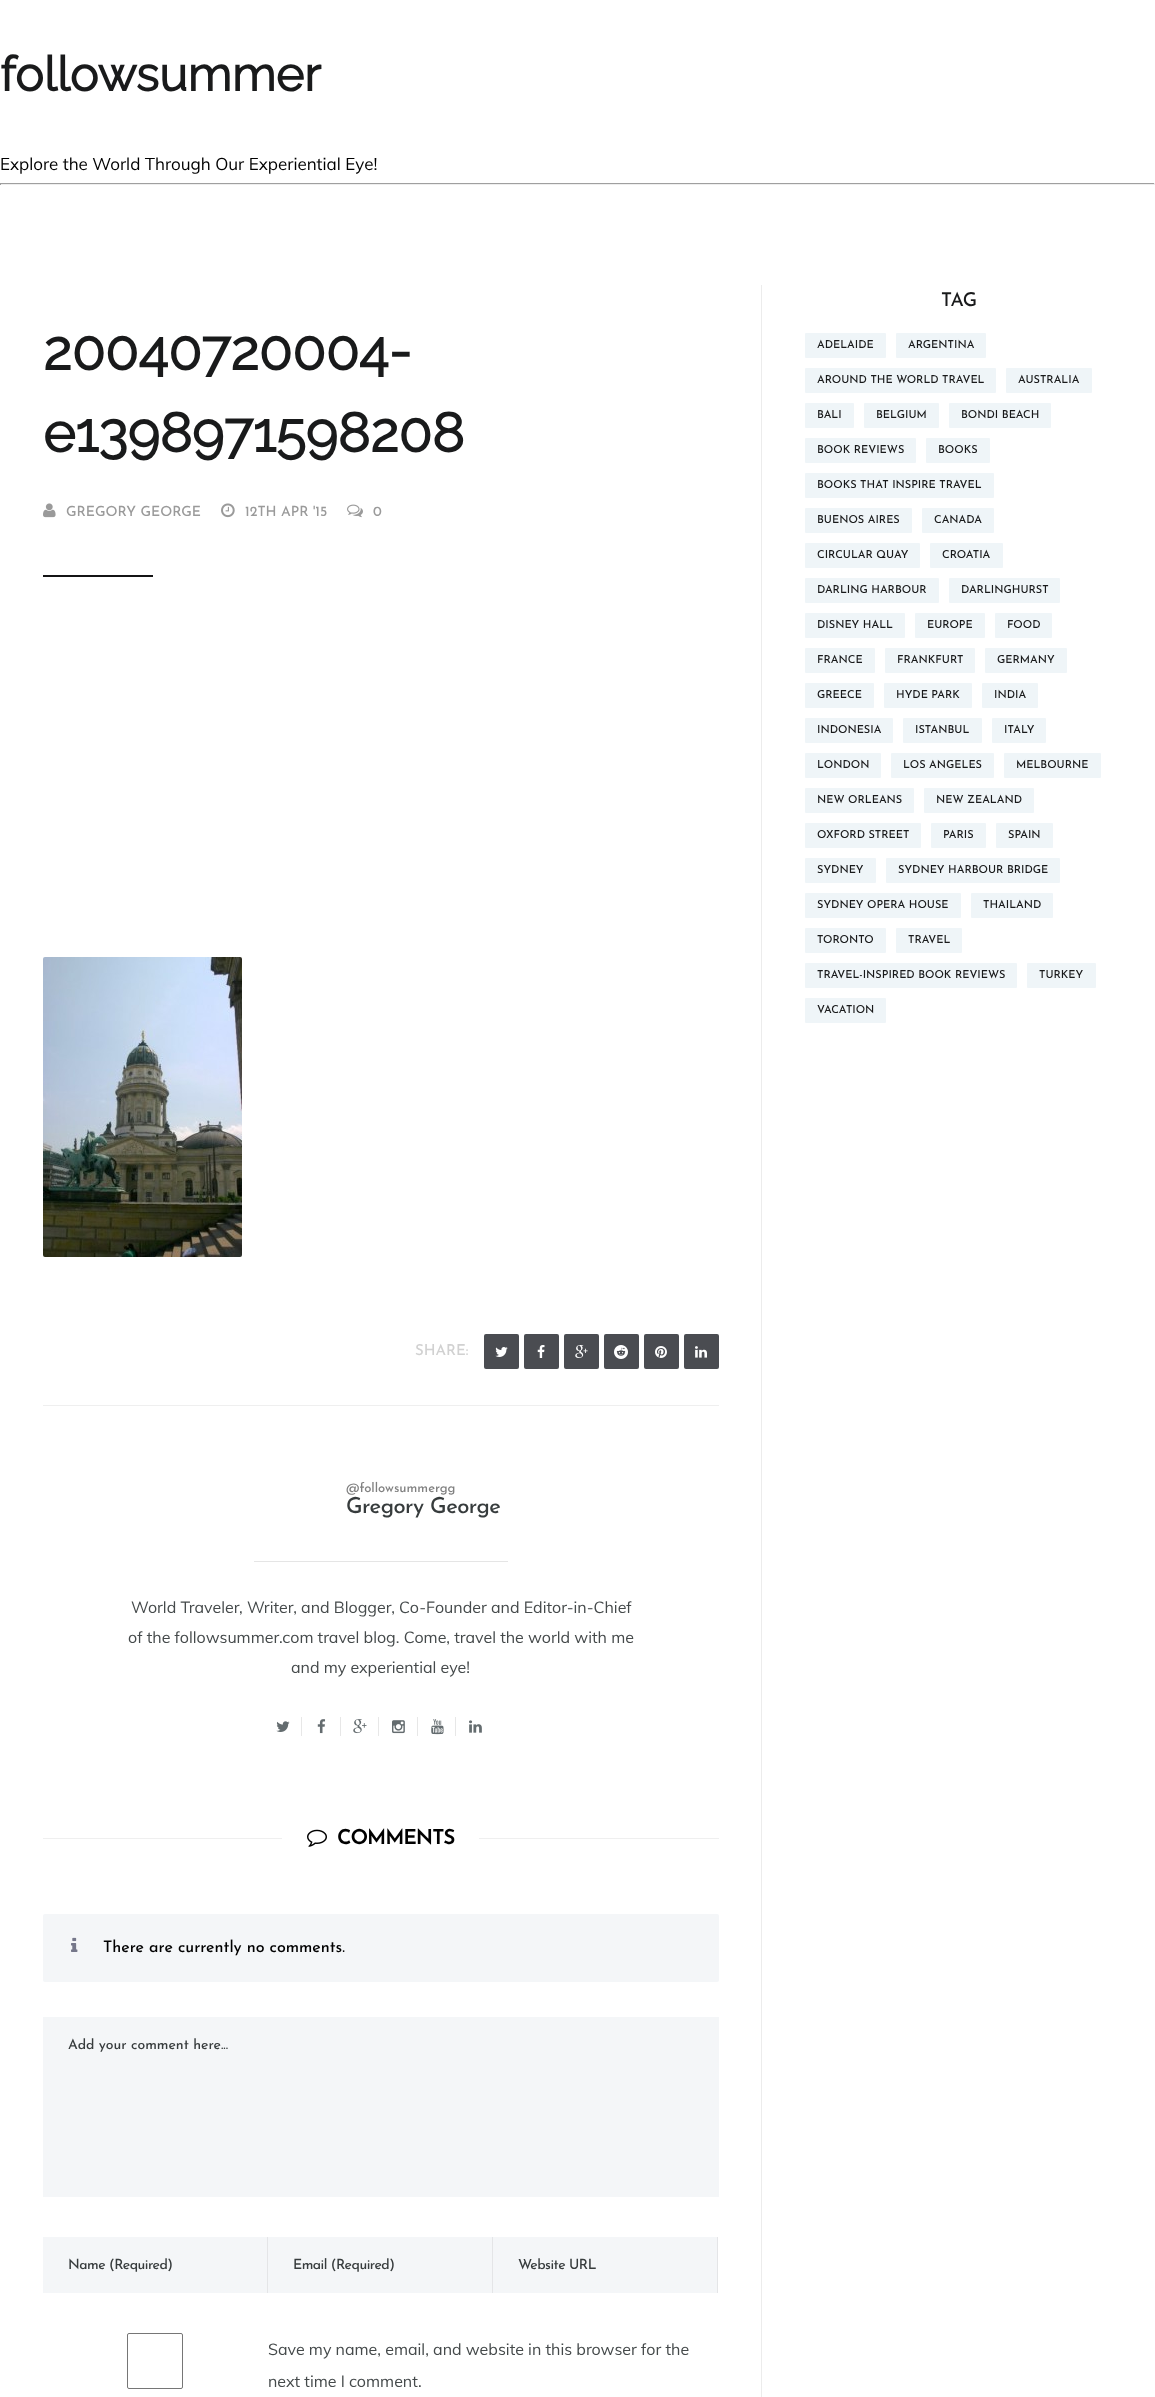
<svg xmlns="http://www.w3.org/2000/svg" width="1155" height="2397" viewBox="0 0 1155 2397">
  <rect width="100%" height="100%" fill="#fff"/>
  <path d="M0 183h1155v1H0z" fill="#9f9f9f"/>
  <path d="M1154 183h1v2H1154z" fill="#eee"/>
  <path d="M0 184h1155v1H0z" fill="#eee"/>
  <path d="M0 183h1v2H0z" fill="#9f9f9f"/>
  <path d="M761 285h1v2112H761z" fill="#ececec"/>
  <image x="43" y="503" width="13" height="15" href="img/1.png"/>
  <image x="221" y="503" width="14" height="15" href="img/2.png"/>
  <image x="347" y="504" width="16" height="14" href="img/3.png"/>
  <path d="M43 575h110v2H43z" fill="#141415"/>
  <image x="43" y="957" width="199" height="300" href="img/4.png"/>
  <rect x="484" y="1334" width="35" height="35" rx="2" fill="#4a4c51"/>
  <image x="495" y="1347" width="13" height="10" href="img/5.png"/>
  <rect x="524" y="1334" width="35" height="35" rx="2" fill="#4a4c51"/>
  <image x="537" y="1345" width="8" height="13" href="img/6.png"/>
  <rect x="564" y="1334" width="35" height="35" rx="2" fill="#4a4c51"/>
  <image x="575" y="1345" width="13" height="13" href="img/7.png"/>
  <rect x="604" y="1334" width="35" height="35" rx="2" fill="#4a4c51"/>
  <image x="614" y="1345" width="14" height="14" href="img/8.png"/>
  <rect x="644" y="1334" width="35" height="35" rx="2" fill="#4a4c51"/>
  <image x="655" y="1346" width="12" height="12" href="img/9.png"/>
  <rect x="684" y="1334" width="35" height="35" rx="2" fill="#4a4c51"/>
  <image x="695" y="1346" width="12" height="12" href="img/10.png"/>
  <path d="M43 1405h676v1H43z" fill="#efefef"/>
  <path d="M254 1561h254v1H254z" fill="#e5e5e5"/>
  <path d="M301 1717h1v19H301z" fill="#e7e7e7"/>
  <image x="276" y="1721" width="14" height="11" href="img/11.png"/>
  <path d="M340 1717h1v19H340z" fill="#e7e7e7"/>
  <image x="317" y="1719" width="9" height="15" href="img/12.png"/>
  <path d="M378 1717h1v19H378z" fill="#e7e7e7"/>
  <image x="353" y="1719" width="14" height="15" href="img/13.png"/>
  <path d="M417 1717h1v19H417z" fill="#e7e7e7"/>
  <image x="392" y="1720" width="13" height="14" href="img/14.png"/>
  <path d="M455 1717h1v19H455z" fill="#e7e7e7"/>
  <image x="431" y="1719" width="13" height="16" href="img/15.png"/>
  <image x="469" y="1720" width="13" height="13" href="img/16.png"/>
  <path d="M43 1838h676v1H43z" fill="#efefef"/>
  <path d="M282 1838h197v1H282z" fill="#fff"/>
  <image x="307" y="1829" width="20" height="18" href="img/17.png"/>
  <rect x="43" y="1914" width="676" height="68" rx="2" fill="#f4f6f8"/>
  <image x="71" y="1937" width="7" height="15" href="img/18.png"/>
  <path d="M43 2017h676v180H43z" fill="#f4f6f8"/>
  <path d="M43 2237h224v56H43z" fill="#f4f6f8"/>
  <path d="M267 2237h1v56H267z" fill="#e4e5e7"/>
  <path d="M268 2237h224v56H268z" fill="#f4f6f8"/>
  <path d="M492 2237h1v56H492z" fill="#e4e5e7"/>
  <path d="M493 2237h224v56H493z" fill="#f4f6f8"/>
  <path d="M717 2237h1v56H717z" fill="#e4e5e7"/>
  <rect x="127.5" y="2333.5" width="55" height="55" rx="1.5" fill="none" stroke="#767676"/>
  <rect x="805" y="333" width="81" height="25" rx="1" fill="#eff5f8"/>
  <rect x="896" y="333" width="90" height="25" rx="1" fill="#eff5f8"/>
  <rect x="805" y="368" width="191" height="25" rx="1" fill="#eff5f8"/>
  <rect x="1006" y="368" width="86" height="25" rx="1" fill="#eff5f8"/>
  <rect x="805" y="403" width="49" height="25" rx="1" fill="#eff5f8"/>
  <rect x="864" y="403" width="75" height="25" rx="1" fill="#eff5f8"/>
  <rect x="949" y="403" width="102" height="25" rx="1" fill="#eff5f8"/>
  <rect x="805" y="438" width="111" height="25" rx="1" fill="#eff5f8"/>
  <rect x="926" y="438" width="64" height="25" rx="1" fill="#eff5f8"/>
  <rect x="805" y="473" width="189" height="25" rx="1" fill="#eff5f8"/>
  <rect x="805" y="508" width="107" height="25" rx="1" fill="#eff5f8"/>
  <rect x="922" y="508" width="72" height="25" rx="1" fill="#eff5f8"/>
  <rect x="805" y="543" width="115" height="25" rx="1" fill="#eff5f8"/>
  <rect x="930" y="543" width="73" height="25" rx="1" fill="#eff5f8"/>
  <rect x="805" y="578" width="134" height="25" rx="1" fill="#eff5f8"/>
  <rect x="949" y="578" width="111" height="25" rx="1" fill="#eff5f8"/>
  <rect x="805" y="613" width="100" height="25" rx="1" fill="#eff5f8"/>
  <rect x="915" y="613" width="70" height="25" rx="1" fill="#eff5f8"/>
  <rect x="995" y="613" width="57" height="25" rx="1" fill="#eff5f8"/>
  <rect x="805" y="648" width="70" height="25" rx="1" fill="#eff5f8"/>
  <rect x="885" y="648" width="90" height="25" rx="1" fill="#eff5f8"/>
  <rect x="985" y="648" width="82" height="25" rx="1" fill="#eff5f8"/>
  <rect x="805" y="683" width="69" height="25" rx="1" fill="#eff5f8"/>
  <rect x="884" y="683" width="88" height="25" rx="1" fill="#eff5f8"/>
  <rect x="982" y="683" width="56" height="25" rx="1" fill="#eff5f8"/>
  <rect x="805" y="718" width="88" height="25" rx="1" fill="#eff5f8"/>
  <rect x="903" y="718" width="79" height="25" rx="1" fill="#eff5f8"/>
  <rect x="992" y="718" width="54" height="25" rx="1" fill="#eff5f8"/>
  <rect x="805" y="753" width="76" height="25" rx="1" fill="#eff5f8"/>
  <rect x="891" y="753" width="103" height="25" rx="1" fill="#eff5f8"/>
  <rect x="1004" y="753" width="97" height="25" rx="1" fill="#eff5f8"/>
  <rect x="805" y="788" width="109" height="25" rx="1" fill="#eff5f8"/>
  <rect x="924" y="788" width="110" height="25" rx="1" fill="#eff5f8"/>
  <rect x="805" y="823" width="116" height="25" rx="1" fill="#eff5f8"/>
  <rect x="931" y="823" width="55" height="25" rx="1" fill="#eff5f8"/>
  <rect x="996" y="823" width="57" height="25" rx="1" fill="#eff5f8"/>
  <rect x="805" y="858" width="71" height="25" rx="1" fill="#eff5f8"/>
  <rect x="886" y="858" width="174" height="25" rx="1" fill="#eff5f8"/>
  <rect x="805" y="893" width="156" height="25" rx="1" fill="#eff5f8"/>
  <rect x="971" y="893" width="82" height="25" rx="1" fill="#eff5f8"/>
  <rect x="805" y="928" width="81" height="25" rx="1" fill="#eff5f8"/>
  <rect x="896" y="928" width="66" height="25" rx="1" fill="#eff5f8"/>
  <rect x="805" y="963" width="212" height="25" rx="1" fill="#eff5f8"/>
  <rect x="1027" y="963" width="69" height="25" rx="1" fill="#eff5f8"/>
  <rect x="805" y="998" width="81" height="25" rx="1" fill="#eff5f8"/>
  <text x="0" y="91" font-family="Raleway" font-size="48" font-weight="bold" fill="#191a1b">followsummer</text>
  <text x="0" y="170" font-family="Muli" font-size="17" fill="#000">Explore the World Through Our Experiential Eye!</text>
  <g font-family="Raleway" font-size="55" font-weight="bold" letter-spacing="-0.25" fill="#191a1b">
    <text x="43" y="370">20040720004-</text>
    <text x="43" y="452">e1398971598208</text>
  </g>
  <g font-family="Josefin Sans" font-size="14" font-weight="100" fill="#9a9a9a">
    <text x="66" y="516">GREGORY GEORGE</text>
    <text x="245" y="516">12TH APR '15</text>
    <text x="373" y="516">0</text>
  </g>
  <text x="415" y="1355" font-family="Josefin Sans" font-size="15" font-weight="100" fill="#d1d1d1">SHARE:</text>
  <text x="346" y="1492" font-family="Josefin Sans" font-size="13" font-weight="100" fill="#818181">@followsummergg</text>
  <text x="346" y="1513" font-family="Josefin Sans" font-size="22" font-weight="100" letter-spacing="-0.5" fill="#373c3d">Gregory George</text>
  <g font-family="Muli" font-size="16" fill="#454a4b">
    <text x="131" y="1613">World Traveler, Writer, and Blogger, Co-Founder and Editor-in-Chief</text>
    <text x="128" y="1643">of the followsummer.com travel blog. Come, travel the world with me</text>
    <text x="291" y="1673">and my experiential eye!</text>
  </g>
  <text x="337" y="1844" font-family="Josefin Sans" font-size="20" font-weight="bold" letter-spacing="-0.5" fill="#000">COMMENTS</text>
  <text x="103" y="1952" font-family="Josefin Sans" font-size="16" font-weight="100" fill="#000">There are currently no comments.</text>
  <text x="68" y="2049" font-family="Josefin Sans" font-size="14" font-weight="100" fill="#373c3d">Add your comment here...</text>
  <g font-family="Josefin Sans" font-size="14" font-weight="100" letter-spacing="-0.5" fill="#373c3d">
    <text x="68" y="2269">Name (Required)</text>
    <text x="293" y="2269">Email (Required)</text>
    <text x="518" y="2269">Website URL</text>
  </g>
  <g font-family="Muli" font-size="16" fill="#454a4b">
    <text x="268" y="2355">Save my name, email, and website in this browser for the</text>
    <text x="268" y="2387">next time I comment.</text>
  </g>
  <text x="941" y="306" font-family="Josefin Sans" font-size="19" font-weight="100" letter-spacing="-0.5" fill="#191a1b">TAG</text>
  <g font-family="Josefin Sans" font-size="11" font-weight="100" fill="#191a1b">
    <text x="817" y="348">ADELAIDE</text>
    <text x="908" y="348">ARGENTINA</text>
    <text x="817" y="383">AROUND THE WORLD TRAVEL</text>
    <text x="1018" y="383">AUSTRALIA</text>
    <text x="817" y="418">BALI</text>
    <text x="876" y="418">BELGIUM</text>
    <text x="961" y="418">BONDI BEACH</text>
    <text x="817" y="453">BOOK REVIEWS</text>
    <text x="938" y="453">BOOKS</text>
    <text x="817" y="488">BOOKS THAT INSPIRE TRAVEL</text>
    <text x="817" y="523">BUENOS AIRES</text>
    <text x="934" y="523">CANADA</text>
    <text x="817" y="558">CIRCULAR QUAY</text>
    <text x="942" y="558">CROATIA</text>
    <text x="817" y="593">DARLING HARBOUR</text>
    <text x="961" y="593">DARLINGHURST</text>
    <text x="817" y="628">DISNEY HALL</text>
    <text x="927" y="628">EUROPE</text>
    <text x="1007" y="628">FOOD</text>
    <text x="817" y="663">FRANCE</text>
    <text x="897" y="663">FRANKFURT</text>
    <text x="997" y="663">GERMANY</text>
    <text x="817" y="698">GREECE</text>
    <text x="896" y="698">HYDE PARK</text>
    <text x="994" y="698">INDIA</text>
    <text x="817" y="733">INDONESIA</text>
    <text x="915" y="733">ISTANBUL</text>
    <text x="1004" y="733">ITALY</text>
    <text x="817" y="768">LONDON</text>
    <text x="903" y="768">LOS ANGELES</text>
    <text x="1016" y="768">MELBOURNE</text>
    <text x="817" y="803">NEW ORLEANS</text>
    <text x="936" y="803">NEW ZEALAND</text>
    <text x="817" y="838">OXFORD STREET</text>
    <text x="943" y="838">PARIS</text>
    <text x="1008" y="838">SPAIN</text>
    <text x="817" y="873">SYDNEY</text>
    <text x="898" y="873">SYDNEY HARBOUR BRIDGE</text>
    <text x="817" y="908">SYDNEY OPERA HOUSE</text>
    <text x="983" y="908">THAILAND</text>
    <text x="817" y="943">TORONTO</text>
    <text x="908" y="943">TRAVEL</text>
    <text x="817" y="978">TRAVEL-INSPIRED BOOK REVIEWS</text>
    <text x="1039" y="978">TURKEY</text>
    <text x="817" y="1013">VACATION</text>
  </g>
</svg>
